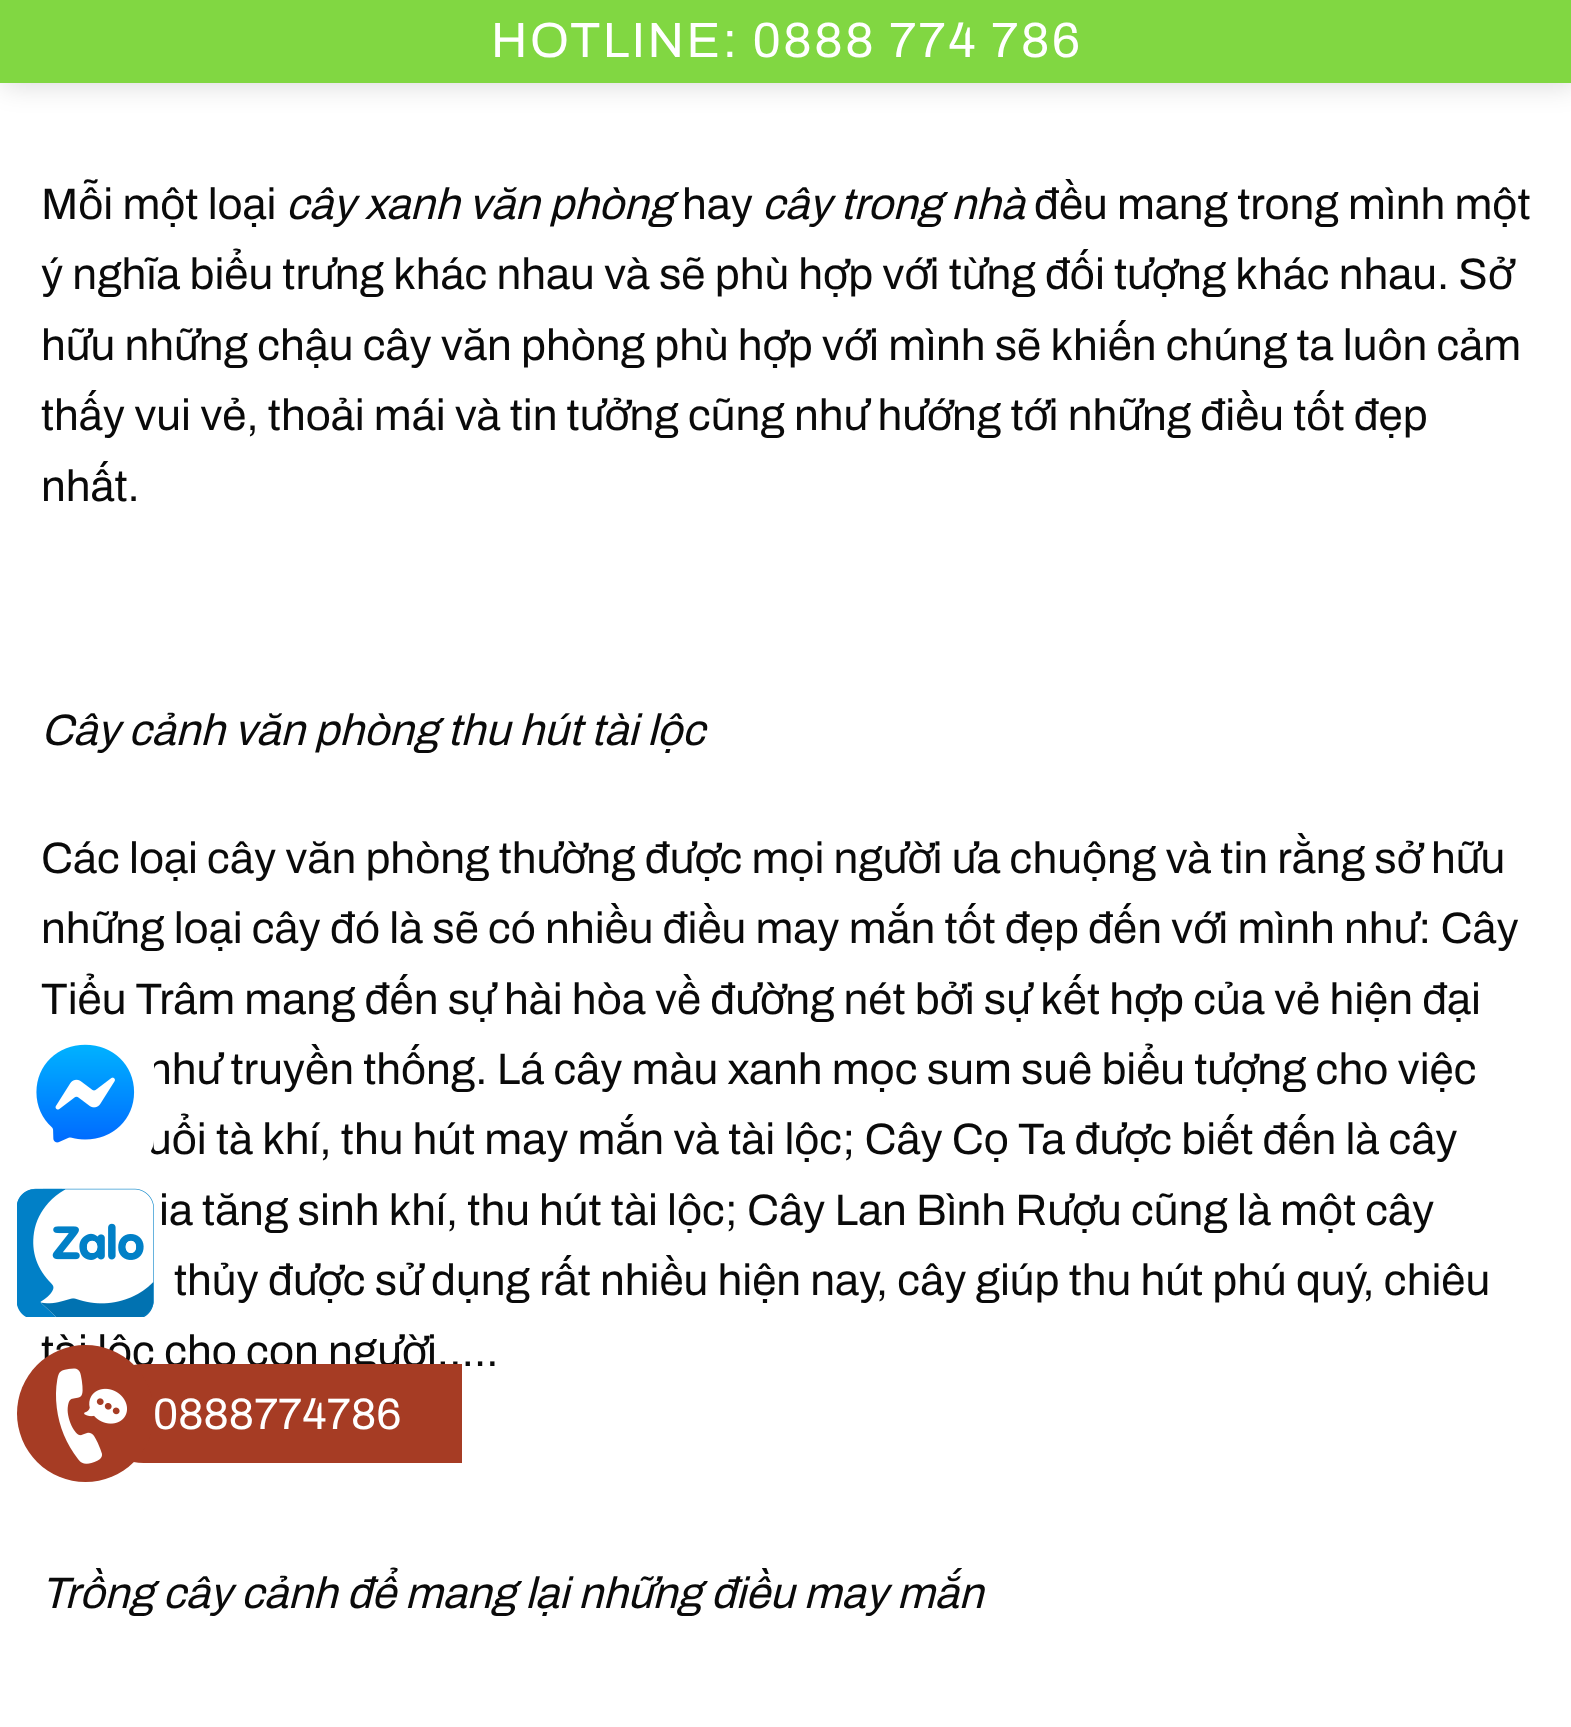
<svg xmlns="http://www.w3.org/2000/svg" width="1571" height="1727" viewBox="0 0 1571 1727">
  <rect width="100%" height="100%" fill="#fff"/>
  <path d="M3 3h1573v82H3z" fill="#00000026" filter="blur(14px)"/>
  <path d="M0 0h1571v83H0z" fill="#81d742"/>
  <image x="17" y="1188" width="137" height="129" href="img/2.png"/>
  <text x="491" y="57" font-family="Archivo" font-size="49.5" font-weight="600" letter-spacing="2.5" fill="#fff">HOTLINE: 0888 774 786</text>
  <text x="41" y="219" font-family="Archivo" font-size="44" font-weight="600" fill="#0a0a0a">Mỗi một loại</text>
  <text x="286" y="219" font-family="Archivo" font-size="44" font-weight="600" font-style="italic" fill="#0a0a0a">cây xanh văn phòng</text>
  <text x="682" y="219" font-family="Archivo" font-size="44" font-weight="600" fill="#0a0a0a">hay</text>
  <text x="762" y="219" font-family="Archivo" font-size="44" font-weight="600" font-style="italic" fill="#0a0a0a">cây trong nhà</text>
  <g font-family="Archivo" font-size="44" font-weight="600" fill="#0a0a0a">
    <text x="1034" y="219">đều mang trong mình một</text>
    <text x="41" y="289">ý nghĩa biểu trưng khác nhau và sẽ phù hợp với từng đối tượng khác nhau. Sở</text>
    <text x="41" y="360">hữu những chậu cây văn phòng phù hợp với mình sẽ khiến chúng ta luôn cảm</text>
    <text x="41" y="430">thấy vui vẻ, thoải mái và tin tưởng cũng như hướng tới những điều tốt đẹp</text>
    <text x="41" y="501">nhất.</text>
  </g>
  <text x="41" y="745" font-family="Archivo" font-size="44" font-weight="600" font-style="italic" fill="#0a0a0a">Cây cảnh văn phòng thu hút tài lộc</text>
  <g font-family="Archivo" font-size="44" font-weight="600" fill="#0a0a0a">
    <text x="41" y="873">Các loại cây văn phòng thường được mọi người ưa chuộng và tin rằng sở hữu</text>
    <text x="41" y="943">những loại cây đó là sẽ có nhiều điều may mắn tốt đẹp đến với mình như: Cây</text>
    <text x="41" y="1014">Tiểu Trâm mang đến sự hài hòa về đường nét bởi sự kết hợp của vẻ hiện đại</text>
    <text x="147" y="1084">như truyền thống. Lá cây màu xanh mọc sum suê biểu tượng cho việc</text>
    <text x="147" y="1154">uổi tà khí, thu hút may mắn và tài lộc; Cây Cọ Ta được biết đến là cây</text>
    <text x="159" y="1225">ia tăng sinh khí, thu hút tài lộc; Cây Lan Bình Rượu cũng là một cây</text>
    <text x="174" y="1295">thủy được sử dụng rất nhiều hiện nay, cây giúp thu hút phú quý, chiêu</text>
    <text x="41" y="1366">tài lộc cho con người…..</text>
  </g>
  <text x="41" y="1608" font-family="Archivo" font-size="44" font-weight="600" font-style="italic" fill="#0a0a0a">Trồng cây cảnh để mang lại những điều may mắn</text>
  <image x="36" y="1044" width="118" height="111" href="img/1.png"/>
  <path d="M143.5 1364H462V1463H143.5C116 1463 94 1441 94 1413.5C94 1386 116 1364 143.5 1364Z" fill="#a63c24"/>
  <circle cx="85.5" cy="1413.5" r="68.5" fill="#a63c24"/>
  <image x="56" y="1368" width="71" height="96" href="img/3.png"/>
  <text x="153" y="1429" font-family="Archivo" font-size="44" font-weight="600" fill="#fff">0888774786</text>
</svg>
